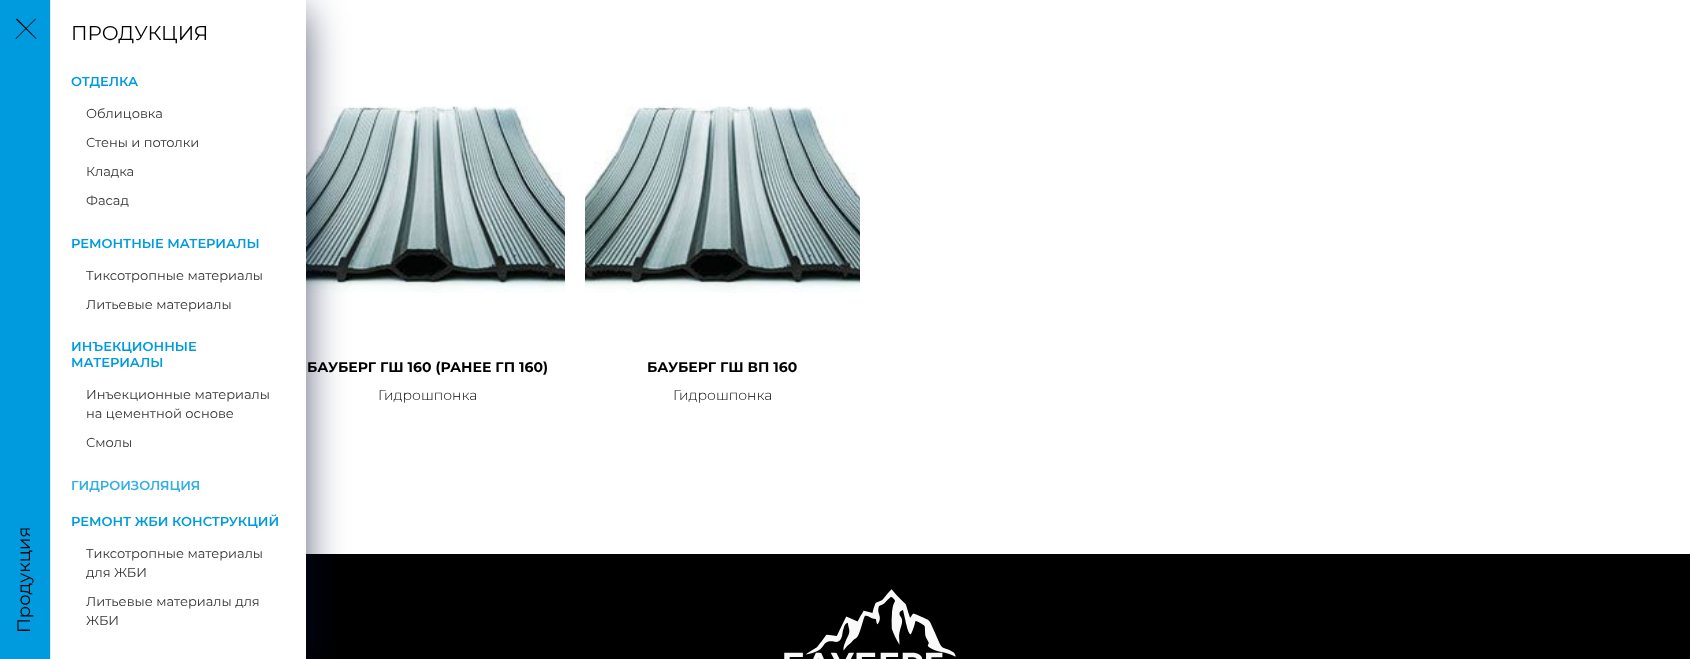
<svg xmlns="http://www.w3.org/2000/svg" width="1690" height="659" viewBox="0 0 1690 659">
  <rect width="100%" height="100%" fill="#fff"/>
  <image x="306" y="106" width="259" height="187" href="img/1.png"/>
  <path d="M306 554h1384v105H306z" fill="#000"/>
  <path d="M52 12h252v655H52z" fill="#000b30b3" filter="blur(20px)"/>
  <path d="M0 0h50v659H0z" fill="#009bdf"/>
  <path d="M17 18.5L36.5 38.5L36 39L16 19.5Z" fill="#000"/>
  <path d="M15.5 38.5L35.5 18.5L36 19L16 39Z" fill="#000"/>
  <path d="M51 0h255v659H51z" fill="#fff"/>
  <path d="M50 0h1v659H50z" fill="#e6e6e6"/>
  <image x="585" y="106" width="275" height="187" href="img/2.png"/>
  <image x="784" y="589" width="172" height="70" href="img/3.png"/>
  <text x="30" y="633" transform="rotate(-90 30 633)" font-family="Montserrat" font-size="18" fill="#000">Продукция</text>
  <text x="71" y="40" font-family="Montserrat" font-size="20" fill="#000">ПРОДУКЦИЯ</text>
  <text x="71" y="86" font-family="Montserrat" font-size="13" font-weight="600" fill="#009bdf">ОТДЕЛКА</text>
  <g font-family="Montserrat" font-size="13" fill="#333">
    <text x="86" y="118">Облицовка</text>
    <text x="86" y="147">Стены и потолки</text>
    <text x="86" y="176">Кладка</text>
    <text x="86" y="205">Фасад</text>
  </g>
  <text x="71" y="248" font-family="Montserrat" font-size="13" font-weight="600" fill="#009bdf">РЕМОНТНЫЕ МАТЕРИАЛЫ</text>
  <g font-family="Montserrat" font-size="13" fill="#333">
    <text x="86" y="280">Тиксотропные материалы</text>
    <text x="86" y="309">Литьевые материалы</text>
  </g>
  <g font-family="Montserrat" font-size="13" font-weight="600" fill="#009bdf">
    <text x="71" y="351">ИНЪЕКЦИОННЫЕ</text>
    <text x="71" y="367">МАТЕРИАЛЫ</text>
  </g>
  <g font-family="Montserrat" font-size="13" fill="#333">
    <text x="86" y="399">Инъекционные материалы</text>
    <text x="86" y="418">на цементной основе</text>
    <text x="86" y="447">Смолы</text>
  </g>
  <text x="71" y="490" font-family="Montserrat" font-size="13" font-weight="600" fill="#33afe5">ГИДРОИЗОЛЯЦИЯ</text>
  <text x="71" y="526" font-family="Montserrat" font-size="13" font-weight="600" fill="#009bdf">РЕМОНТ ЖБИ КОНСТРУКЦИЙ</text>
  <g font-family="Montserrat" font-size="13" fill="#333">
    <text x="86" y="558">Тиксотропные материалы</text>
    <text x="86" y="577">для ЖБИ</text>
    <text x="86" y="606">Литьевые материалы для</text>
    <text x="86" y="625">ЖБИ</text>
  </g>
  <text x="307" y="372" font-family="Montserrat" font-size="14" font-weight="bold" fill="#000">БАУБЕРГ ГШ 160 (РАНЕЕ ГП 160)</text>
  <text x="378" y="400" font-family="Montserrat" font-size="14" font-weight="300" fill="#000">Гидрошпонка</text>
  <text x="647" y="372" font-family="Montserrat" font-size="14" font-weight="bold" fill="#000">БАУБЕРГ ГШ ВП 160</text>
  <text x="673" y="400" font-family="Montserrat" font-size="14" font-weight="300" fill="#000">Гидрошпонка</text>
</svg>
